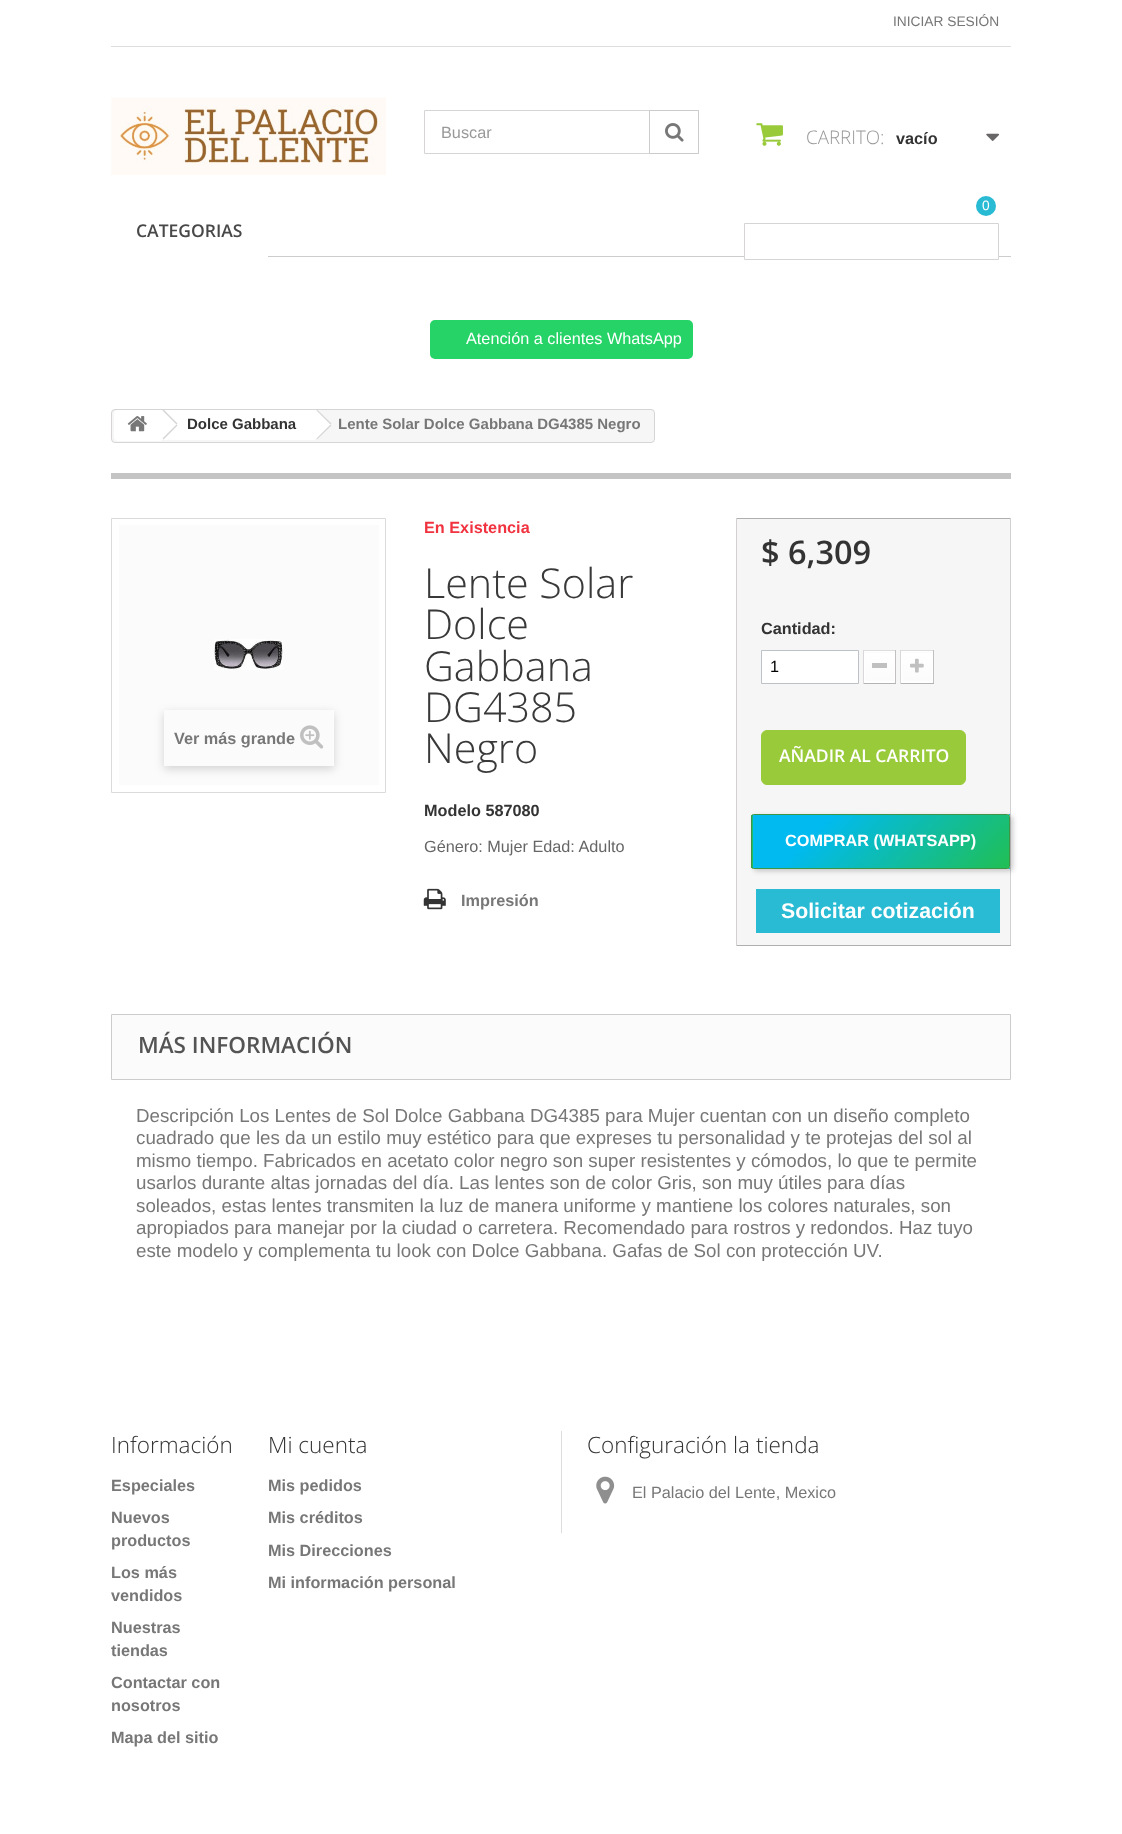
<svg xmlns="http://www.w3.org/2000/svg" width="1122" height="1834" viewBox="0 0 1122 1834">
  <defs>
    <clipPath id="clip1"><path d="M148 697H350V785H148ZM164 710H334V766H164Z" clip-rule="evenodd"/></clipPath>
    <linearGradient id="g1" gradientUnits="userSpaceOnUse" x1="879" y1="624" x2="879" y2="653"><stop offset="0" stop-color="#fff"/><stop offset="1" stop-color="#fbfbfb"/></linearGradient>
    <linearGradient id="g2" gradientUnits="userSpaceOnUse" x1="879" y1="653" x2="879" y2="681"><stop offset="0" stop-color="#fff"/><stop offset="1" stop-color="#fbfbfb"/></linearGradient>
    <linearGradient id="g3" gradientUnits="userSpaceOnUse" x1="917" y1="624" x2="917" y2="653"><stop offset="0" stop-color="#fff"/><stop offset="1" stop-color="#fbfbfb"/></linearGradient>
    <linearGradient id="g4" gradientUnits="userSpaceOnUse" x1="917" y1="653" x2="917" y2="681"><stop offset="0" stop-color="#fff"/><stop offset="1" stop-color="#fbfbfb"/></linearGradient>
    <linearGradient id="g5" gradientUnits="userSpaceOnUse" x1="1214" y1="866" x2="1060" y2="712"><stop offset="0" stop-color="#20bf55"/><stop offset="0.74" stop-color="#01baef"/></linearGradient>
    <linearGradient id="g6" gradientUnits="userSpaceOnUse" x1="702" y1="918" x2="547" y2="764"><stop offset="0" stop-color="#20bf55"/><stop offset="0.74" stop-color="#01baef"/></linearGradient>
    <linearGradient id="g7" gradientUnits="userSpaceOnUse" x1="958" y1="918" x2="803" y2="764"><stop offset="0" stop-color="#20bf55"/><stop offset="0.74" stop-color="#01baef"/></linearGradient>
    <linearGradient id="g8" gradientUnits="userSpaceOnUse" x1="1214" y1="971" x2="1060" y2="817"><stop offset="0" stop-color="#20bf55"/><stop offset="0.74" stop-color="#01baef"/></linearGradient>
  </defs>
  <rect width="100%" height="100%" fill="#fff"/>
  <path d="M111 46h900v1H111z" fill="#ddd"/>
  <image x="111" y="97" width="275" height="78" href="img/1.png"/>
  <path d="M424.5 110.5h274v43H424.5z" fill="none" stroke="#d6d4d4"/>
  <path d="M649.5 110.5h49v43H649.5z" fill="none" stroke="#ccc"/>
  <image x="665" y="123" width="19" height="19" href="img/2.png"/>
  <image x="756" y="123" width="27" height="23" href="img/3.png"/>
  <image x="986" y="133" width="14" height="8" href="img/4.png"/>
  <circle cx="986" cy="206" r="10" fill="#29bbd4"/>
  <path d="M268 256h743v1H268z" fill="#ccc"/>
  <path d="M745 256h253v1H745z" fill="#fff"/>
  <path d="M744.5 223.5h254v36H744.5z" fill="none" stroke="#d6d4d4"/>
  <rect x="430" y="320" width="263" height="39" rx="5" fill="#25d366"/>
  <rect x="111.5" y="409.5" width="543" height="33" rx="3.5" fill="#f6f6f6" stroke="#d6d4d4"/>
  <path d="M118 410H161V441H118C116 441 114 439 114 437V414C114 412 116 410 118 410Z" fill="#fff"/>
  <image x="127" y="416" width="20" height="16" href="img/5.png"/>
  <path d="M161 410h154v30H161z" fill="#fff"/>
  <path d="M163.5 409.5L177.5 423.5L176.5 424.5L162.5 410.5Z" fill="#d6d4d4"/>
  <path d="M176.5 424.5L177.5 425.5L163.5 439.5L162.5 438.5Z" fill="#d6d4d4"/>
  <path d="M318 410.5L317.5 410H315L314.5 410.5L302 422.5C301 423.5 301 425 302 426L314.5 438.5C315.5 439.5 317 439.5 318 438.5L330.5 426C331.5 425 331.5 423.5 330.5 422.5Z" fill="#fff"/>
  <path d="M317 409.5L331.5 423.5L330.5 424.5L316.5 410.5Z" fill="#d6d4d4"/>
  <path d="M330.5 424.5L331.5 425.5L317 439.5L316.5 438.5Z" fill="#d6d4d4"/>
  <path d="M111 473h900v6H111z" fill="#c4c4c4"/>
  <path d="M111.5 518.5h274v274H111.5z" fill="none" stroke="#dbdbdb"/>
  <path d="M119 525h260v260H119z" fill="#fbfbfb"/>
  <image x="214" y="639" width="69" height="31" href="img/6.png"/>
  <g clip-path="url(#clip1)">
    <path d="M164 713h170v56H164z" fill="#00000029" filter="blur(5px)"/>
  </g>
  <path d="M333 710h1v56H333z" fill="#ffffff80"/>
  <image x="300" y="725" width="24" height="24" href="img/7.png"/>
  <image x="423" y="888" width="23" height="22" href="img/8.png"/>
  <path d="M737 519h273v426H737z" fill="#f6f6f6"/>
  <path d="M736 518h275v1H736z" fill="#b0afaf"/>
  <path d="M1010 518h1v428H1010z" fill="#d2d0d0"/>
  <path d="M736 945h275v1H736z" fill="#b0afaf"/>
  <path d="M736 518h1v428H736z" fill="#d2d0d0"/>
  <path d="M761.5 650.5h97v33H761.5z" fill="#fff" stroke="#bdc2c9"/>
  <path d="M865 681h29v1H865z" fill="#fff"/>
  <path d="M863 650h33v1H863z" fill="#dedcdc"/>
  <path d="M895 650h1v34H895z" fill="#c1bfbf"/>
  <path d="M863 683h33v1H863z" fill="#b5b4b4"/>
  <path d="M863 650h1v34H863z" fill="#dad8d8"/>
  <path d="M864 652h31v1H864z" fill="url(#g1)"/>
  <path d="M865 653h29v28H865z" fill="url(#g2)"/>
  <path d="M864.5 651.5h30v31H864.5z" fill="none" stroke="#fff"/>
  <path d="M872 663h15v5H872z" fill="#c0c0c0"/>
  <path d="M902 681h30v1H902z" fill="#fff"/>
  <path d="M900 650h34v1H900z" fill="#dedcdc"/>
  <path d="M933 650h1v34H933z" fill="#c1bfbf"/>
  <path d="M900 683h34v1H900z" fill="#b5b4b4"/>
  <path d="M900 650h1v34H900z" fill="#dad8d8"/>
  <path d="M901 652h32v1H901z" fill="url(#g3)"/>
  <path d="M902 653h30v28H902z" fill="url(#g4)"/>
  <path d="M901.5 651.5h31v31H901.5z" fill="none" stroke="#fff"/>
  <image x="910" y="658" width="14" height="15" href="img/9.png"/>
  <rect x="761.5" y="730.5" width="204" height="54" rx="5.5" fill="#99ca3a" stroke="#99ca3a"/>
  <rect x="754" y="816" width="259" height="55" rx="2.5" fill="#00000033" filter="blur(2.5px)"/>
  <path d="M1009 814h1v1H1009z" fill="url(#g5)"/>
  <path d="M751 815h2v53H751z" fill="url(#g6)"/>
  <path d="M753 815h256v53H753z" fill="url(#g7)"/>
  <path d="M1009 868h1v1H1009z" fill="url(#g8)"/>
  <rect x="751.5" y="814.5" width="258" height="54" rx="2" fill="none" stroke="#3e9546"/>
  <path d="M756 889h244v44H756z" fill="#29bbd4"/>
  <path d="M111.5 1014.5h899v65H111.5z" fill="#fbfbfb" stroke="#ccc"/>
  <path d="M561 1431h1v102H561z" fill="#ddd"/>
  <image x="596" y="1476" width="19" height="28" href="img/10.png"/>
  <text x="893" y="26" font-family="Liberation Sans" font-size="13.75" fill="#777">INICIAR SESIÓN</text>
  <text x="441" y="138" font-family="Liberation Sans" font-size="16.25" fill="#999">Buscar</text>
  <text x="806" y="144" font-family="Open Sans" font-size="18.75" font-weight="300" fill="#999">CARRITO:</text>
  <text x="896" y="144" font-family="Liberation Sans" font-size="16.25" font-weight="bold" fill="#333">vacío</text>
  <text x="982" y="210" font-family="Liberation Sans" font-size="13.75" fill="#fff">0</text>
  <text x="136" y="237" font-family="Open Sans" font-size="17.5" font-weight="600" fill="#484848">CATEGORIAS</text>
  <text x="466" y="344" font-family="Liberation Sans" font-size="16.25" fill="#fff">Atención a clientes WhatsApp</text>
  <text x="187" y="429" font-family="Liberation Sans" font-size="15" font-weight="bold" fill="#333">Dolce Gabbana</text>
  <text x="338" y="429" font-family="Liberation Sans" font-size="15" font-weight="bold" fill="#777">Lente Solar Dolce Gabbana DG4385 Negro</text>
  <text x="174" y="744" font-family="Liberation Sans" font-size="16.25" font-weight="bold" fill="#777">Ver más grande</text>
  <text x="424" y="533" font-family="Liberation Sans" font-size="16.25" font-weight="bold" fill="#f13340">En Existencia</text>
  <g font-family="Open Sans" font-size="41.25" font-weight="300" fill="#3a3939">
    <text x="424" y="598">Lente Solar</text>
    <text x="424" y="639">Dolce</text>
    <text x="424" y="681">Gabbana</text>
    <text x="424" y="722">DG4385</text>
    <text x="424" y="763">Negro</text>
  </g>
  <text x="424" y="816" font-family="Liberation Sans" font-size="16.25" font-weight="bold" fill="#333">Modelo 587080</text>
  <text x="424" y="852" font-family="Liberation Sans" font-size="16.25" fill="#666">Género: Mujer Edad: Adulto</text>
  <text x="461" y="906" font-family="Liberation Sans" font-size="16.25" font-weight="bold" fill="#777">Impresión</text>
  <text x="761" y="564" font-family="Open Sans" font-size="32.5" font-weight="600" fill="#333">$ 6,309</text>
  <text x="761" y="634" font-family="Liberation Sans" font-size="16.25" font-weight="bold" fill="#333">Cantidad:</text>
  <text x="770" y="672" font-family="Liberation Sans" font-size="16.25" fill="#000">1</text>
  <text x="779" y="762" font-family="Open Sans" font-size="17.5" font-weight="600" fill="#fff">AÑADIR AL CARRITO</text>
  <text x="785" y="846" font-family="Liberation Sans" font-size="16.25" font-weight="bold" fill="#fff">COMPRAR (WHATSAPP)</text>
  <text x="781" y="918" font-family="Liberation Sans" font-size="21.25" font-weight="bold" fill="#fff">Solicitar cotización</text>
  <text x="138" y="1053" font-family="Open Sans" font-size="22.5" font-weight="600" fill="#555454">MÁS INFORMACIÓN</text>
  <g font-family="Liberation Sans" font-size="18.75" fill="#777">
    <text x="136" y="1122">Descripción Los Lentes de Sol Dolce Gabbana DG4385 para Mujer cuentan con un diseño completo</text>
    <text x="136" y="1144">cuadrado que les da un estilo muy estético para que expreses tu personalidad y te protejas del sol al</text>
    <text x="136" y="1167">mismo tiempo. Fabricados en acetato color negro son super resistentes y cómodos, lo que te permite</text>
    <text x="136" y="1189">usarlos durante altas jornadas del día. Las lentes son de color Gris, son muy útiles para días</text>
    <text x="136" y="1212">soleados, estas lentes transmiten la luz de manera uniforme y mantiene los colores naturales, son</text>
    <text x="136" y="1234">apropiados para manejar por la ciudad o carretera. Recomendado para rostros y redondos. Haz tuyo</text>
    <text x="136" y="1257">este modelo y complementa tu look con Dolce Gabbana. Gafas de Sol con protección UV.</text>
  </g>
  <text x="111" y="1453" font-family="Open Sans" font-size="22.5" font-weight="300" fill="#333">Información</text>
  <g font-family="Liberation Sans" font-size="16.25" font-weight="bold" fill="#777">
    <text x="111" y="1491">Especiales</text>
    <text x="111" y="1523">Nuevos</text>
    <text x="111" y="1546">productos</text>
    <text x="111" y="1578">Los más</text>
    <text x="111" y="1601">vendidos</text>
    <text x="111" y="1633">Nuestras</text>
    <text x="111" y="1656">tiendas</text>
    <text x="111" y="1688">Contactar con</text>
    <text x="111" y="1711">nosotros</text>
    <text x="111" y="1743">Mapa del sitio</text>
  </g>
  <text x="268" y="1453" font-family="Open Sans" font-size="22.5" font-weight="300" fill="#333">Mi cuenta</text>
  <g font-family="Liberation Sans" font-size="16.25" font-weight="bold" fill="#777">
    <text x="268" y="1491">Mis pedidos</text>
    <text x="268" y="1523">Mis créditos</text>
    <text x="268" y="1556">Mis Direcciones</text>
    <text x="268" y="1588">Mi información personal</text>
  </g>
  <text x="587" y="1453" font-family="Open Sans" font-size="22.5" font-weight="300" fill="#333">Configuración la tienda</text>
  <text x="632" y="1498" font-family="Liberation Sans" font-size="16.25" fill="#777">El Palacio del Lente, Mexico</text>
</svg>
